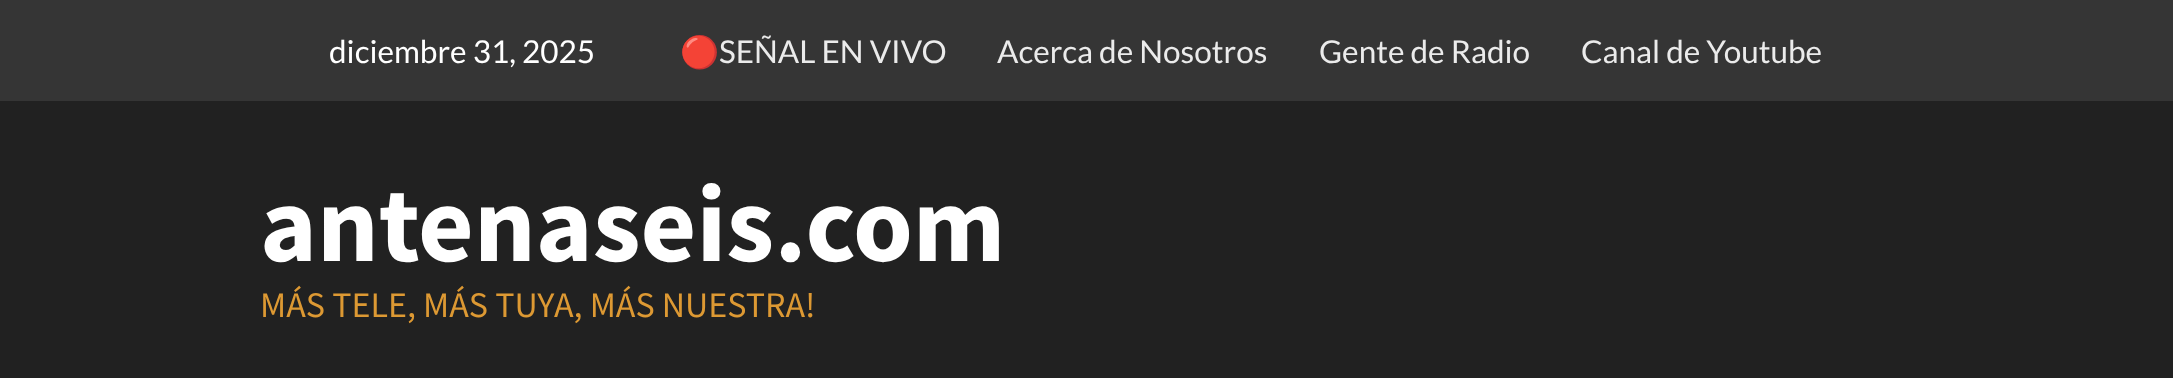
<svg xmlns="http://www.w3.org/2000/svg" width="2173" height="378" viewBox="0 0 2173 378">
  <rect width="100%" height="100%" fill="#212121"/>
  <path d="M0 0h2173v101H0z" fill="#353535"/>
  <text x="329" y="63" font-family="Lato" font-size="31.5" fill="#fff">diciembre 31, 2025</text>
  <text x="680" y="63" font-family="Noto Color Emoji" font-size="31.5" fill="#ebebeb">🔴</text>
  <g font-family="Lato" font-size="31.5" fill="#ebebeb">
    <text x="719" y="63">SEÑAL EN VIVO</text>
    <text x="997" y="63">Acerca de Nosotros</text>
    <text x="1319" y="63">Gente de Radio</text>
    <text x="1581" y="63">Canal de Youtube</text>
  </g>
  <text x="260" y="261" font-family="Source Sans Pro" font-size="108" font-weight="bold" fill="#fff">antenaseis.com</text>
  <text x="260" y="317" font-family="Source Sans Pro" font-size="36" fill="#d93">MÁS TELE, MÁS TUYA, MÁS NUESTRA!</text>
</svg>
